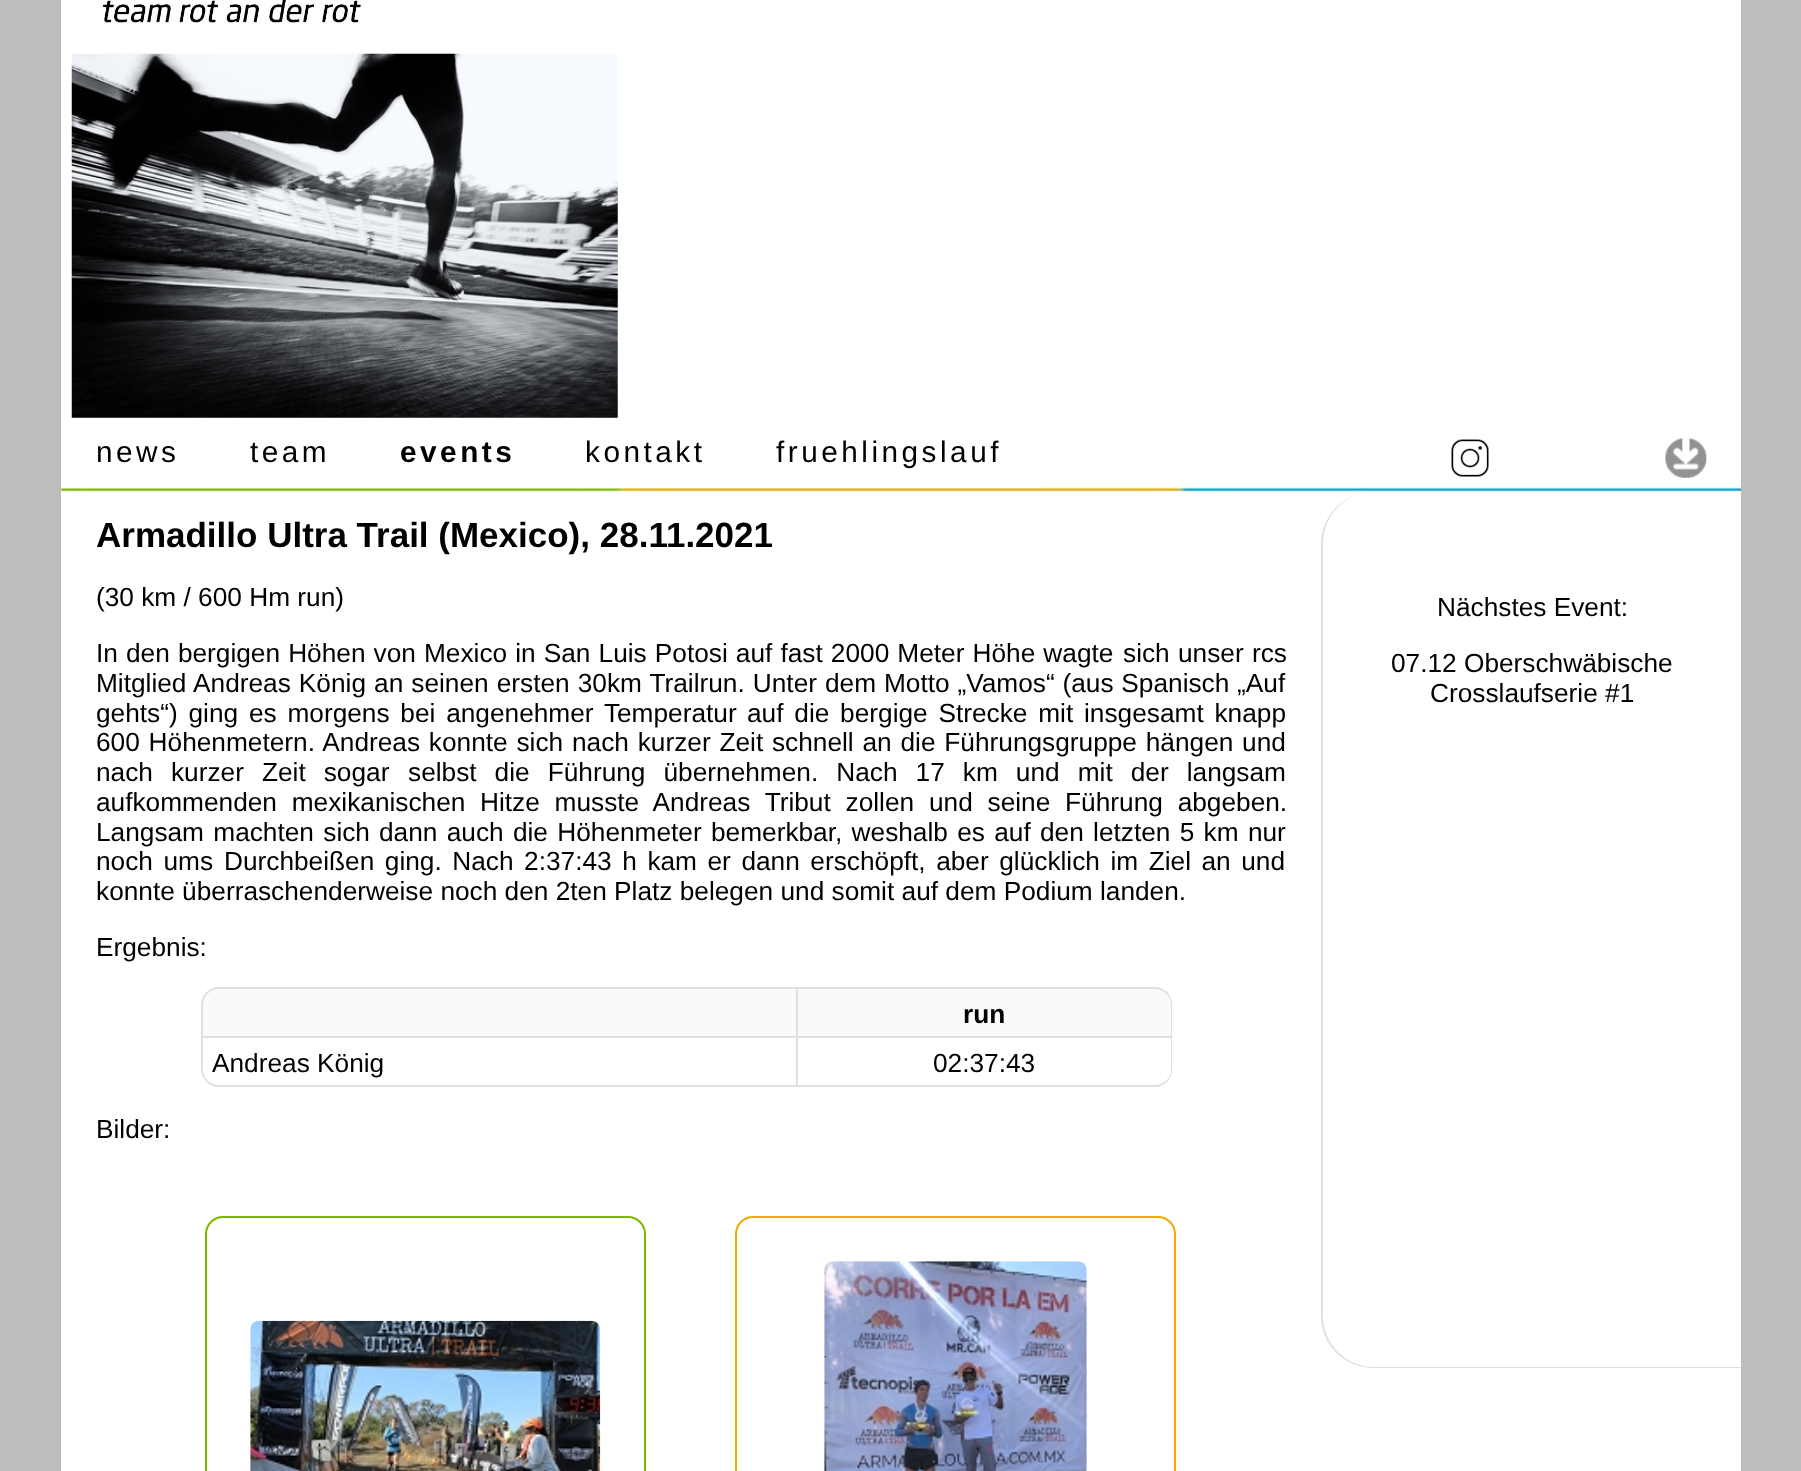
<svg xmlns="http://www.w3.org/2000/svg" width="1801" height="1471" viewBox="0 0 1801 1471">
  <rect width="100%" height="100%" fill="#bdbdbd"/>
  <path d="M61 0h1680v1471H61z" fill="#fff"/>
  <image x="102" y="0" width="259" height="23" href="img/1.png"/>
  <image x="71" y="53" width="547" height="365" href="img/2.png"/>
  <image x="61" y="487" width="1681" height="5" href="img/5.png"/>
  <path d="M61 487h975v1H61z" fill="#fff"/>
  <image x="1451" y="439" width="38" height="38" href="img/3.png"/>
  <image x="1665" y="438" width="42" height="40" href="img/4.png"/>
  <path d="M219 988H797V1037H202V1005C202 995.5 209.5 988 219 988Z" fill="#fafafa" stroke="#e0e0e0" stroke-width="2"/>
  <path d="M798 987H1155C1165 987 1173 995 1173 1005V1038H798Z" fill="#fafafa"/>
  <path d="M798 987H1155C1165 987 1172 995 1172 1004V1038H798ZM798 989H1155C1164 989 1171 996 1171 1004V1036H798Z" fill="#e0e0e0" fill-rule="evenodd"/>
  <path d="M201 1038H798V1087H219C209 1087 201 1079 201 1069ZM203 1038H796V1085H219C210 1085 203 1078 203 1069Z" fill="#e0e0e0" fill-rule="evenodd"/>
  <path d="M798 1038H1172V1069C1172 1079 1165 1087 1155 1087H798ZM798 1038H1171V1069C1171 1078 1164 1085 1155 1085H798Z" fill="#e0e0e0" fill-rule="evenodd"/>
  <rect x="206" y="1217" width="439" height="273" rx="17" fill="none" stroke="#7ab800" stroke-width="2"/>
  <image x="250" y="1320" width="351" height="151" href="img/6.png"/>
  <rect x="736" y="1217" width="439" height="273" rx="17" fill="none" stroke="#f0ab00" stroke-width="2"/>
  <image x="824" y="1261" width="263" height="210" href="img/7.png"/>
  <path d="M1374 492H1741V1368H1374C1345 1368 1321 1345 1321 1316V544C1321 515 1345 492 1374 492ZM1374 492H1741V1367H1374C1346 1367 1323 1344 1323 1316V544C1323 515 1346 492 1374 492Z" fill="#e0e0e0" fill-rule="evenodd"/>
  <g font-family="Liberation Sans" font-size="29.75" letter-spacing="3.5" fill="#000">
    <text x="96" y="462">news</text>
    <text x="250" y="462">team</text>
  </g>
  <text x="400" y="462" font-family="Liberation Sans" font-size="29.75" font-weight="bold" letter-spacing="3.5" fill="#000">events</text>
  <g font-family="Liberation Sans" font-size="29.75" letter-spacing="3.5" fill="#000">
    <text x="585" y="462">kontakt</text>
    <text x="776" y="462">fruehlingslauf</text>
  </g>
  <text x="96" y="547" font-family="Liberation Sans" font-size="35" font-weight="bold" fill="#000">Armadillo Ultra Trail (Mexico), 28.11.2021</text>
  <g font-family="Liberation Sans" font-size="26.25" fill="#000">
    <text x="96" y="606">(30 km / 600 Hm run)</text>
    <text x="96" y="662" word-spacing="0.8">In den bergigen Höhen von Mexico in San Luis Potosi auf fast 2000 Meter Höhe wagte</text>
    <text x="1123" y="662" word-spacing="1">sich unser rcs</text>
    <text x="96" y="692" word-spacing="0.75">Mitglied Andreas König an seinen ersten 30km Trailrun. Unter dem</text>
    <text x="884" y="692" word-spacing="0.5">Motto „Vamos“ (aus Spanisch „Auf</text>
    <text x="96" y="722" word-spacing="3.5">gehts“) ging es morgens bei angenehmer Temperatur</text>
    <text x="747" y="722" word-spacing="3.5">auf die bergige Strecke mit insgesamt knapp</text>
    <text x="96" y="751" word-spacing="1.5">600 Höhenmetern. Andreas konnte sich</text>
    <text x="572" y="751" word-spacing="1.5">nach kurzer Zeit schnell an die Führungsgruppe hängen und</text>
    <text x="96" y="781" word-spacing="10.75">nach kurzer Zeit sogar</text>
    <text x="408" y="781" word-spacing="10.75">selbst die Führung übernehmen. Nach 17 km und mit der langsam</text>
    <text x="96" y="811" word-spacing="7.5">aufkommenden mexikanischen</text>
    <text x="480" y="811" word-spacing="7.5">Hitze musste Andreas Tribut zollen und seine Führung abgeben.</text>
    <text x="96" y="841" word-spacing="2">Langsam machten sich</text>
    <text x="379" y="841" word-spacing="2">dann auch die Höhenmeter bemerkbar, weshalb es auf den letzten 5 km nur</text>
    <text x="96" y="870" word-spacing="3.25">noch ums</text>
    <text x="224" y="870" word-spacing="3.25">Durchbeißen ging. Nach 2:37:43 h kam er dann erschöpft, aber glücklich im Ziel an und</text>
    <text x="96" y="900">konnte überraschenderweise noch den 2ten Platz belegen und somit auf dem Podium landen.</text>
    <text x="96" y="956">Ergebnis:</text>
  </g>
  <text x="963" y="1023" font-family="Liberation Sans" font-size="26.25" font-weight="bold" fill="#000">run</text>
  <g font-family="Liberation Sans" font-size="26.25" fill="#000">
    <text x="212" y="1072">Andreas König</text>
    <text x="933" y="1072">02:37:43</text>
    <text x="96" y="1138">Bilder:</text>
    <text x="1437" y="616">Nächstes Event:</text>
    <text x="1391" y="672">07.12 Oberschwäbische</text>
    <text x="1430" y="702">Crosslaufserie #1</text>
  </g>
</svg>
